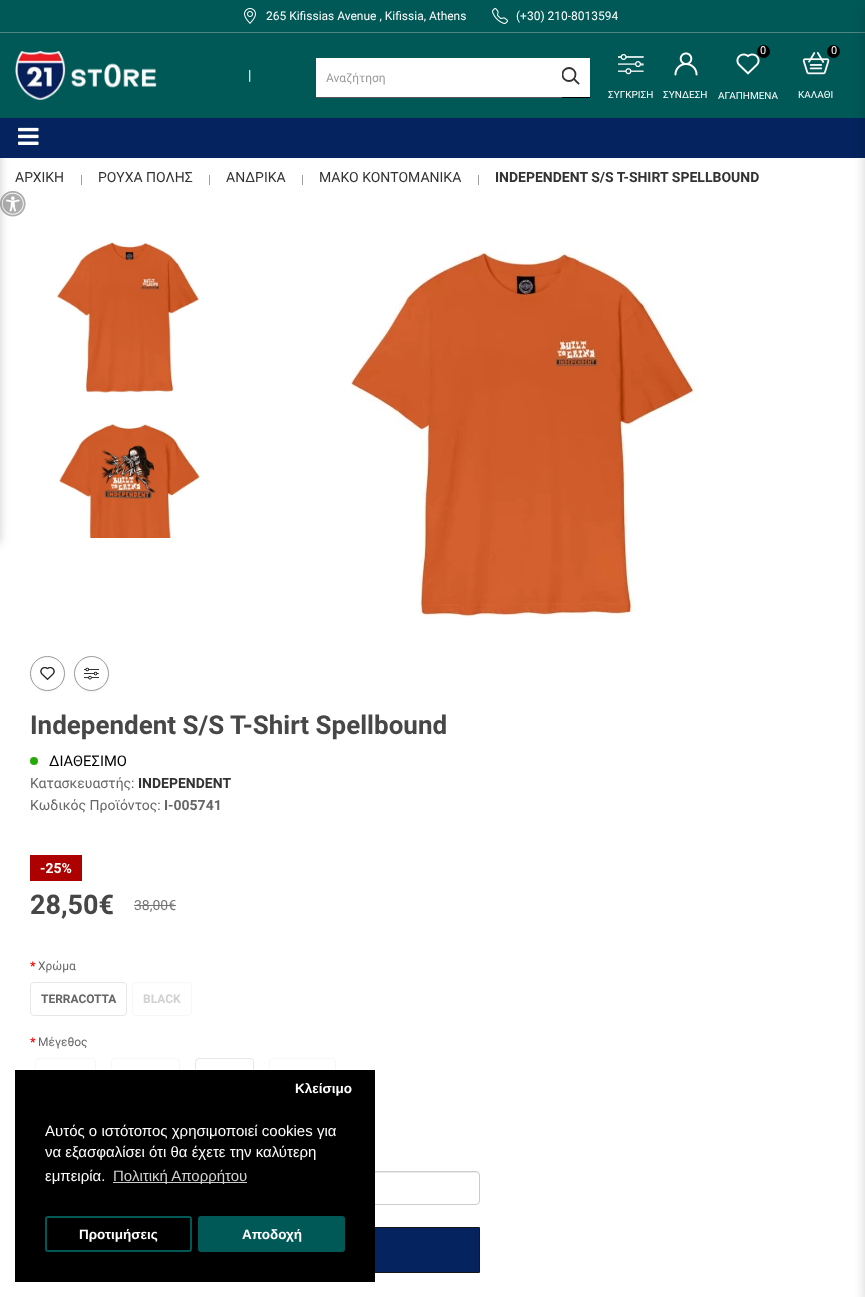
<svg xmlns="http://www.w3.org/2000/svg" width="865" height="1297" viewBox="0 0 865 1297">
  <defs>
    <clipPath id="clip1"><path d="M562 67h18v18H562z"/></clipPath>
  </defs>
  <rect width="100%" height="100%" fill="#fff"/>
  <path d="M0 0h865v32H0z" fill="#005957"/>
  <path d="M0 32h865v1H0z" fill="#508584"/>
  <image x="244" y="8" width="12" height="16" href="img/1.png"/>
  <image x="492" y="8" width="16" height="16" href="img/2.png"/>
  <path d="M-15 50h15v493H-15z" fill="#00000033" filter="blur(5px)"/>
  <image x="0" y="190" width="26" height="27" href="img/3.png"/>
  <path d="M0 33h865v85H0z" fill="#005957"/>
  <image x="15" y="51" width="142" height="49" href="img/4.png"/>
  <path d="M316 58h274v39H316z" fill="#fff"/>
  <path d="M316 97h247v1H316z" fill="#555"/>
  <path d="M562 97h28v1H562z" fill="#000"/>
  <path d="M578.5 83.5L574 79" fill="none" stroke="#333" stroke-width="1.8" stroke-linecap="square"/>
  <g clip-path="url(#clip1)">
    <circle cx="569" cy="74.5" r="6.5" fill="none" stroke="#333" stroke-width="1.8"/>
  </g>
  <image x="618" y="54" width="26" height="21" href="img/5.png"/>
  <image x="674" y="52" width="24" height="24" href="img/6.png"/>
  <image x="736" y="53" width="24" height="22" href="img/7.png"/>
  <circle cx="763.5" cy="51.5" r="6.5" fill="#000"/>
  <image x="802" y="52" width="28" height="23" href="img/8.png"/>
  <circle cx="833.5" cy="51.5" r="6.5" fill="#000"/>
  <path d="M0 118h865v40H0z" fill="#05235e"/>
  <path d="M865 6h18v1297H865z" fill="#0000002e" filter="blur(6px)"/>
  <image x="18" y="127" width="21" height="18" href="img/9.png"/>
  <path d="M81 175h1v10H81z" fill="#9f9f9f"/>
  <path d="M209 175h1v10H209z" fill="#9f9f9f"/>
  <path d="M302 175h1v10H302z" fill="#9f9f9f"/>
  <path d="M478 175h1v10H478z" fill="#9f9f9f"/>
  <image x="57" y="242" width="144" height="151" href="img/10.png"/>
  <image x="59" y="422" width="142" height="116" href="img/11.png"/>
  <image x="350" y="250" width="349" height="368" href="img/12.png"/>
  <rect x="30" y="657" width="35" height="35" rx="17.5" fill="#0000000d" filter="blur(1px)"/>
  <circle cx="47.5" cy="673.5" r="17" fill="#fff" stroke="#999"/>
  <image x="40" y="667" width="15" height="14" href="img/13.png"/>
  <rect x="74" y="657" width="35" height="35" rx="17.5" fill="#0000000d" filter="blur(1px)"/>
  <circle cx="91.5" cy="673.5" r="17" fill="#fff" stroke="#999"/>
  <image x="84" y="667" width="15" height="13" href="img/14.png"/>
  <circle cx="34" cy="761" r="4" fill="#26aa09"/>
  <path d="M30 855h52v26H30z" fill="#ad0000"/>
  <path d="M134 905h42v1H134z" fill="#757575"/>
  <rect x="30.5" y="982.5" width="96" height="33" rx="3.5" fill="none" stroke="#e6e6e6"/>
  <rect x="132.5" y="982.5" width="59" height="33" rx="3.5" fill="none" stroke="#f7f7f7"/>
  <rect x="35.5" y="1058.5" width="60" height="33" rx="3.5" fill="none" stroke="#f7f7f7"/>
  <circle cx="32.5" cy="1074.5" r="6.5" fill="#fff"/>
  <rect x="111.5" y="1058.5" width="68" height="33" rx="3.5" fill="none" stroke="#f7f7f7"/>
  <circle cx="108.5" cy="1074.5" r="6.5" fill="#fff"/>
  <rect x="195.5" y="1058.5" width="58" height="33" rx="3.5" fill="none" stroke="#e6e6e6"/>
  <rect x="269.5" y="1058.5" width="66" height="33" rx="3.5" fill="none" stroke="#f7f7f7"/>
  <circle cx="266.5" cy="1074.5" r="6.5" fill="#fff"/>
  <path d="M34 1173H476C478 1173 479 1174 479 1176C479 1174 478 1172 476 1172H33L31 1174V1176C31 1174 32 1173 34 1173Z" fill="#ececec"/>
  <rect x="30.5" y="1171.5" width="449" height="33" rx="3.5" fill="none" stroke="#ccc"/>
  <path d="M375 1228h104v44H375z" fill="#05235e"/>
  <path d="M30.5 1227.5h449v45H30.5z" fill="none" stroke="#171717"/>
  <path d="M15 1070h360v212H15z" fill="#000001"/>
  <rect x="46" y="1217" width="145" height="34" rx="2" fill="none" stroke="#005957" stroke-width="2"/>
  <rect x="198" y="1216" width="147" height="36" rx="3" fill="#005957"/>
  <path d="M113 1182h134v1H113z" fill="#ccc"/>
  <g font-family="Roboto" font-size="12" fill="#fff">
    <text x="266" y="20">265 Kifissias Avenue , Kifissia, Athens</text>
    <text x="516" y="20">(+30) 210-8013594</text>
  </g>
  <text x="248" y="80" font-family="Roboto" font-size="14" fill="#fff">|</text>
  <text x="326" y="82" font-family="Roboto" font-size="12" fill="#999">Αναζήτηση</text>
  <g font-family="Roboto" font-size="10" fill="#fff">
    <text x="608" y="98">ΣΥΓΚΡΙΣΗ</text>
    <text x="663" y="98">ΣΥΝΔΕΣΗ</text>
  </g>
  <text x="760" y="54" font-family="Roboto" font-size="11" fill="#fff">0</text>
  <text x="718" y="99" font-family="Roboto" font-size="10" fill="#fff">ΑΓΑΠΗΜΕΝΑ</text>
  <text x="831" y="54" font-family="Roboto" font-size="11" fill="#fff">0</text>
  <text x="798" y="98" font-family="Roboto" font-size="10" fill="#fff">ΚΑΛΑΘΙ</text>
  <g font-family="Roboto" font-size="14" fill="#333">
    <text x="15" y="182">ΑΡΧΙΚΗ</text>
    <text x="98" y="182">ΡΟΥΧΑ ΠΟΛΗΣ</text>
    <text x="226" y="182">ΑΝΔΡΙΚΑ</text>
    <text x="319" y="182">ΜΑΚΟ ΚΟΝΤΟΜΑΝΙΚΑ</text>
  </g>
  <text x="495" y="182" font-family="Roboto" font-size="14" font-weight="bold" fill="#333">INDEPENDENT S/S T-SHIRT SPELLBOUND</text>
  <text x="30" y="734" font-family="Roboto" font-size="26" font-weight="bold" fill="#474747">Independent S/S T-Shirt Spellbound</text>
  <text x="49" y="766" font-family="Roboto" font-size="14.75" fill="#000">ΔΙΑΘΕΣΙΜΟ</text>
  <text x="30" y="788" font-family="Roboto" font-size="14" fill="#666">Κατασκευαστής:</text>
  <text x="138" y="788" font-family="Roboto" font-size="14" font-weight="bold" fill="#333">INDEPENDENT</text>
  <text x="30" y="810" font-family="Roboto" font-size="14" fill="#666">Κωδικός Προϊόντος:</text>
  <text x="164" y="810" font-family="Roboto" font-size="14" font-weight="bold" fill="#666">I-005741</text>
  <text x="40" y="873" font-family="Roboto" font-size="14" font-weight="bold" fill="#fff">-25%</text>
  <text x="30" y="914" font-family="Roboto" font-size="27" font-weight="bold" fill="#474747">28,50€</text>
  <text x="134" y="910" font-family="Roboto" font-size="14" fill="#757575">38,00€</text>
  <text x="30" y="970" font-family="Roboto" font-size="12" font-weight="bold" fill="#f00">*</text>
  <text x="38" y="970" font-family="Roboto" font-size="12" fill="#666">Χρώμα</text>
  <text x="41" y="1003" font-family="Roboto" font-size="12" font-weight="bold" fill="#666">TERRACOTTA</text>
  <text x="143" y="1003" font-family="Roboto" font-size="12" font-weight="bold" fill="#d1d1d1">BLACK</text>
  <text x="30" y="1046" font-family="Roboto" font-size="12" font-weight="bold" fill="#f00">*</text>
  <text x="38" y="1046" font-family="Roboto" font-size="12" fill="#666">Μέγεθος</text>
  <g font-family="Liberation Sans" font-size="13.5" font-weight="bold" fill="#fff">
    <text x="295" y="1093">Κλείσιμο</text>
    <text x="79" y="1239">Προτιμήσεις</text>
    <text x="242" y="1239">Αποδοχή</text>
  </g>
  <g font-family="Liberation Sans" font-size="15" fill="#fff">
    <text x="45" y="1136">Αυτός ο ιστότοπος χρησιμοποιεί cookies για</text>
    <text x="45" y="1157">να εξασφαλίσει ότι θα έχετε την καλύτερη</text>
    <text x="45" y="1181">εμπειρία.</text>
  </g>
  <text x="113" y="1181" font-family="Liberation Sans" font-size="15" fill="#d1d1d1">Πολιτική Απορρήτου</text>
</svg>
